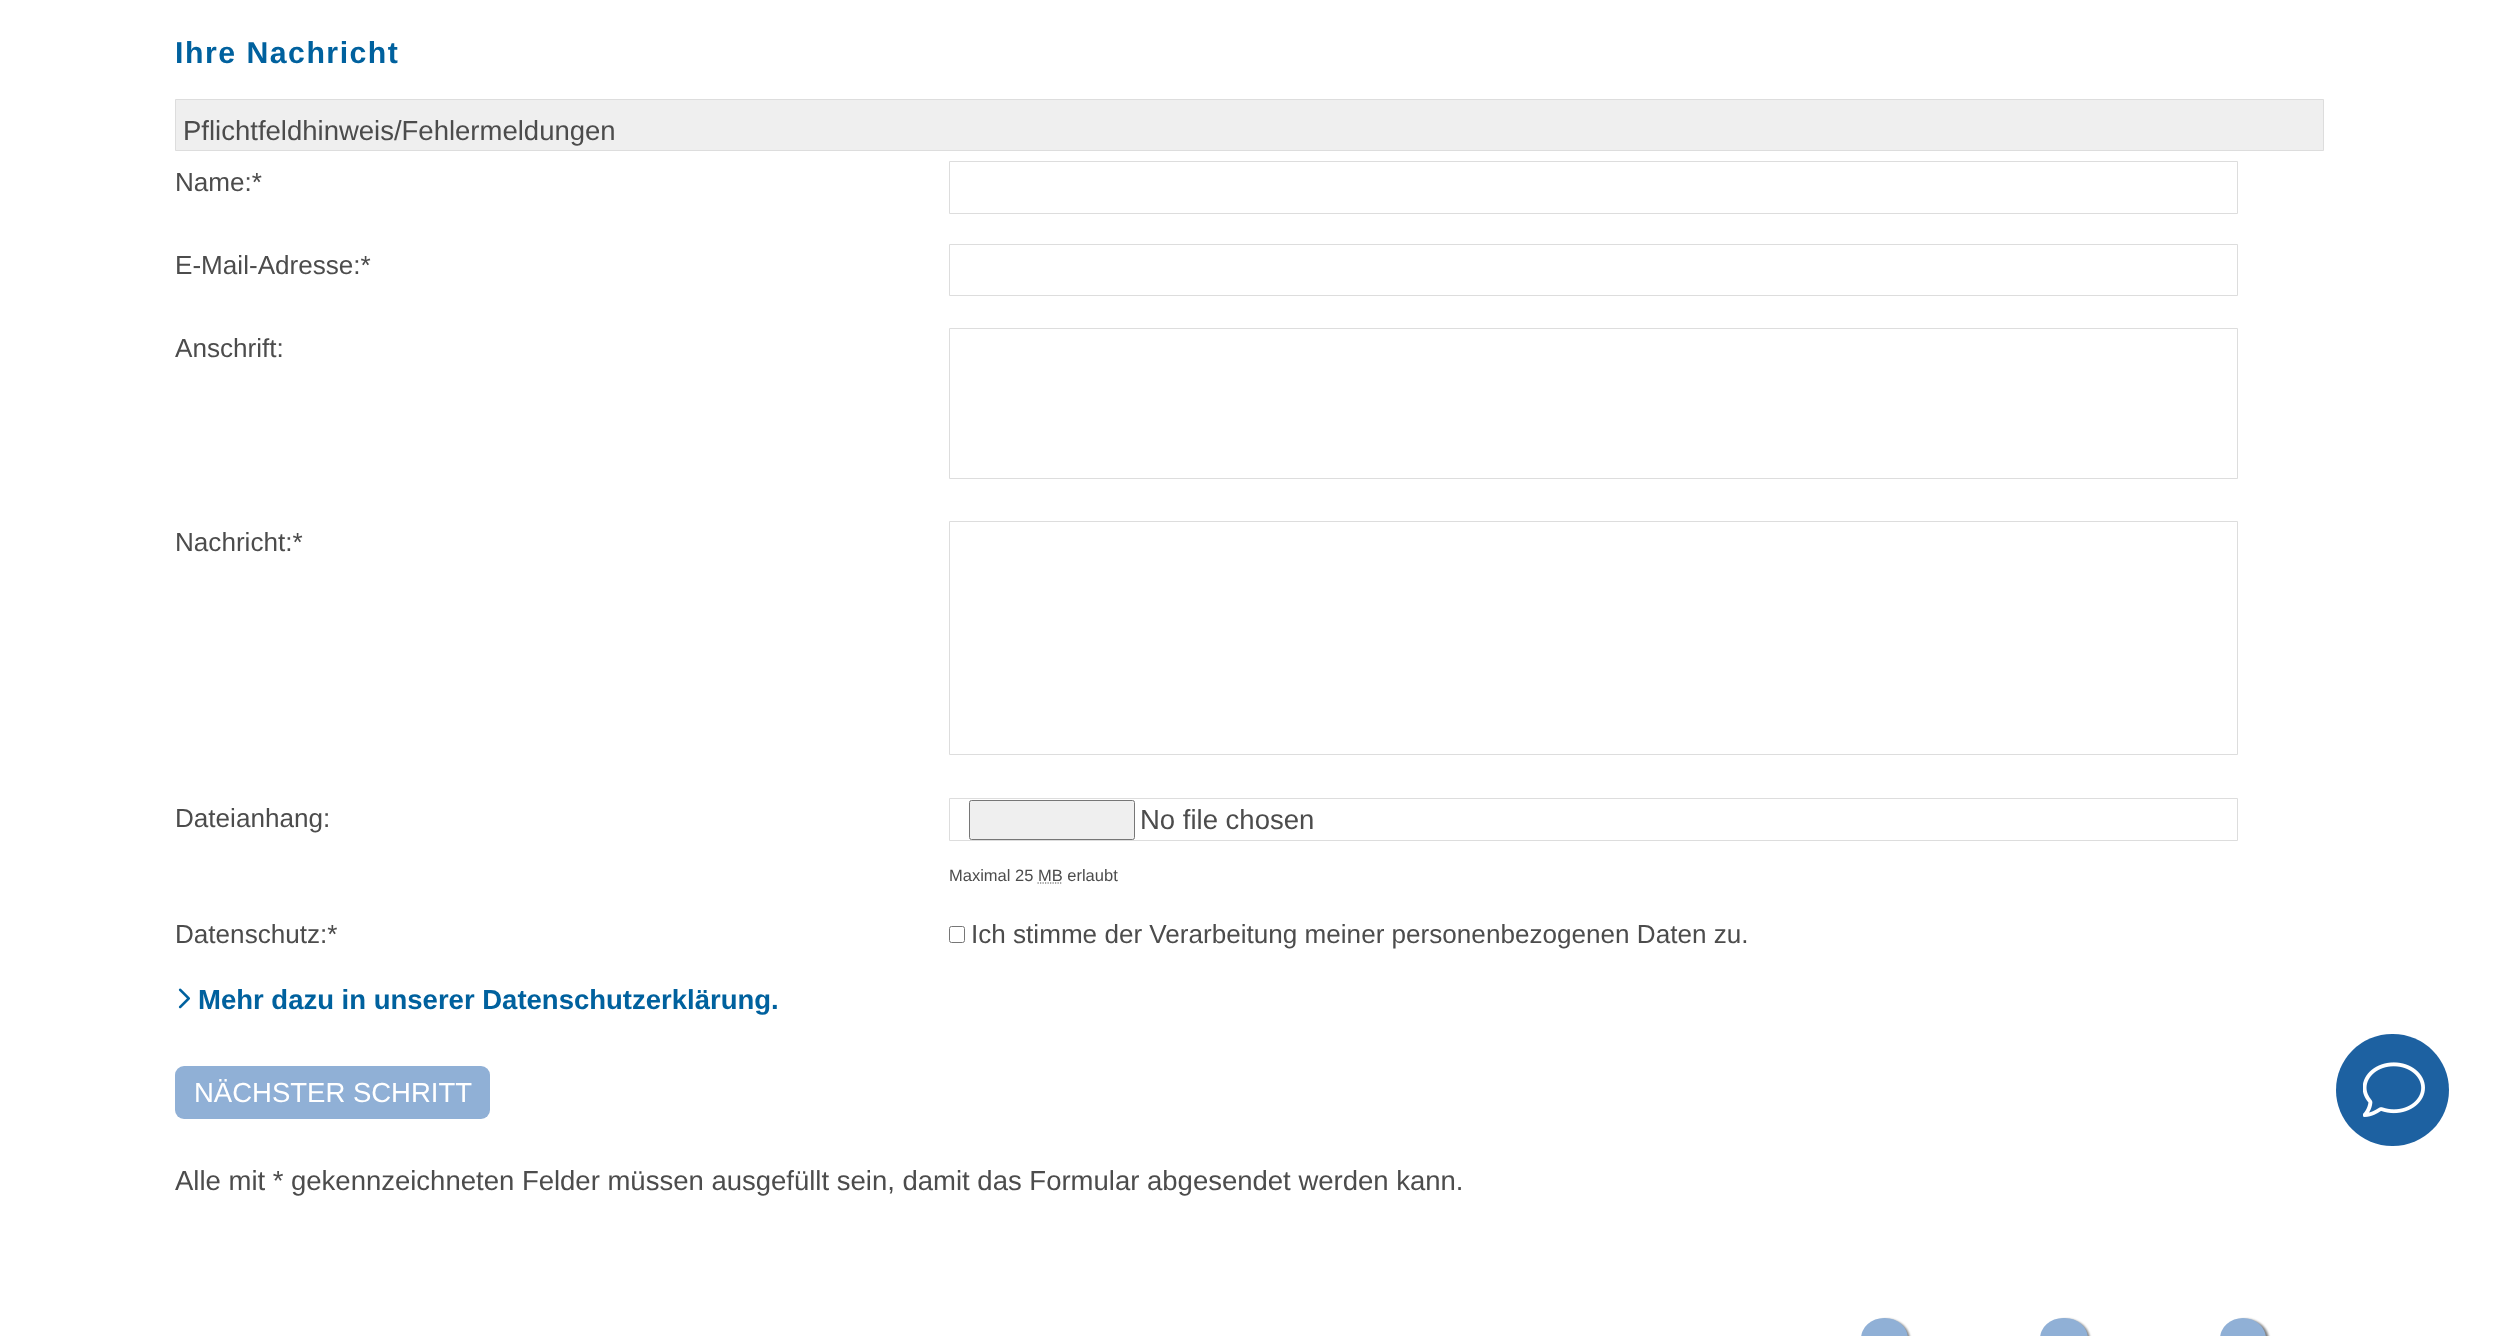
<svg xmlns="http://www.w3.org/2000/svg" width="2498" height="1336" viewBox="0 0 2498 1336">
  <rect width="100%" height="100%" fill="#fff"/>
  <path d="M175.5 99.5h2148v51H175.5z" fill="#efefef" stroke="#ddd"/>
  <path d="M949.5 161.5h1288v52H949.5z" fill="none" stroke="#ddd"/>
  <path d="M949.5 244.5h1288v51H949.5z" fill="none" stroke="#ddd"/>
  <path d="M949.5 328.5h1288v150H949.5z" fill="none" stroke="#ddd"/>
  <path d="M949.5 521.5h1288v233H949.5z" fill="none" stroke="#ddd"/>
  <path d="M949.5 798.5h1288v42H949.5z" fill="none" stroke="#ddd"/>
  <rect x="969.5" y="800.5" width="165" height="39" rx="2" fill="#efefef" stroke="#767676"/>
  <path d="M1037.5 883H1062" fill="none" stroke="#4c4c4c" stroke-width="1.2" stroke-dasharray="1.25 1.25"/>
  <rect x="949.5" y="926.5" width="15" height="16" rx="2" fill="none" stroke="#767676"/>
  <image x="178" y="988" width="12" height="21" href="img/1.png"/>
  <rect x="175" y="1066" width="315" height="53" rx="9" fill="#90b0d6"/>
  <rect x="1864" y="1319" width="46" height="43" rx="23" fill="#00000080" filter="blur(1px)"/>
  <rect x="1861" y="1318" width="47" height="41" rx="23" fill="#90b0d6"/>
  <rect x="2043" y="1319" width="47" height="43" rx="23" fill="#00000080" filter="blur(1px)"/>
  <rect x="2040" y="1318" width="48" height="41" rx="23" fill="#90b0d6"/>
  <rect x="2223" y="1319" width="46" height="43" rx="23" fill="#00000080" filter="blur(1px)"/>
  <rect x="2220" y="1318" width="46" height="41" rx="23" fill="#90b0d6"/>
  <rect x="2336" y="1034" width="113" height="112" rx="56" fill="#1d61a1"/>
  <image x="2363" y="1062" width="62" height="55" href="img/2.png"/>
  <text x="175" y="63" font-family="Liberation Sans" font-size="30.25" font-weight="bold" letter-spacing="1.5" fill="#00619e">Ihre Nachricht</text>
  <text x="183" y="140" font-family="Liberation Sans" font-size="27.5" fill="#4c4c4c">Pflichtfeldhinweis/Fehlermeldungen</text>
  <g font-family="Liberation Sans" font-size="26.1" fill="#4c4c4c">
    <text x="175" y="191">Name:*</text>
    <text x="175" y="274">E-Mail-Adresse:*</text>
    <text x="175" y="357">Anschrift:</text>
    <text x="175" y="551">Nachricht:*</text>
    <text x="175" y="827">Dateianhang:</text>
  </g>
  <text x="1140" y="829" font-family="Liberation Sans" font-size="27.5" fill="#4c4c4c">No file chosen</text>
  <text x="949" y="881" font-family="Liberation Sans" font-size="16.5" fill="#4c4c4c">Maximal 25 MB erlaubt</text>
  <g font-family="Liberation Sans" font-size="26.1" fill="#4c4c4c">
    <text x="175" y="943">Datenschutz:*</text>
    <text x="971" y="943">Ich stimme der Verarbeitung meiner personenbezogenen Daten zu.</text>
  </g>
  <text x="198" y="1009" font-family="Liberation Sans" font-size="27.5" font-weight="bold" fill="#00619e">Mehr dazu in unserer Datenschutzerklärung.</text>
  <text x="194" y="1102" font-family="Liberation Sans" font-size="27.5" fill="#fff">NÄCHSTER SCHRITT</text>
  <g font-family="Liberation Sans" font-size="27.5" fill="#4c4c4c">
    <text x="175" y="1190">Alle mit *</text>
    <text x="291" y="1190">gekennzeichneten Felder müssen ausgefüllt sein, damit das Formular abgesendet werden kann.</text>
  </g>
</svg>
